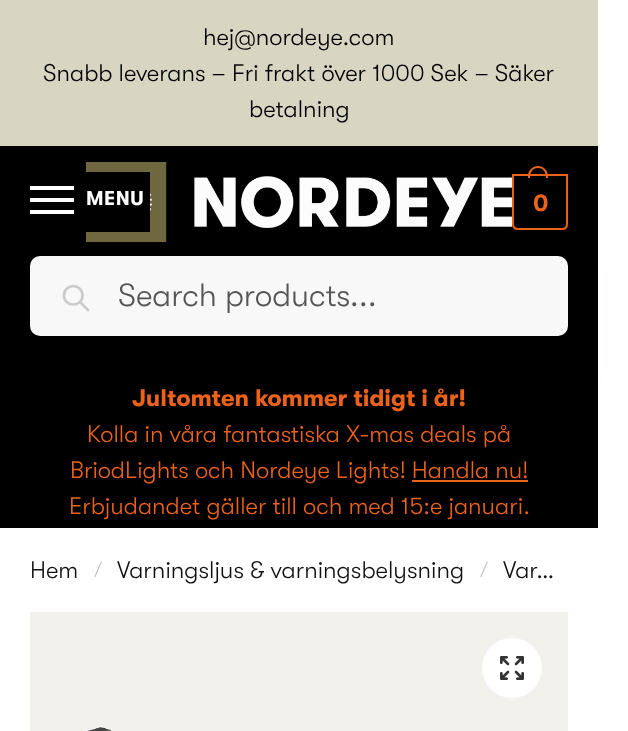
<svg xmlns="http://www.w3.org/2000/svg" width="628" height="731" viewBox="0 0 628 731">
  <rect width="100%" height="100%" fill="#fff"/>
  <path d="M0 0h598v146H0z" fill="#d8d5c3"/>
  <path d="M0 146h598v110H0z" fill="#000"/>
  <image x="86" y="162" width="426" height="80" href="img/1.png"/>
  <path d="M86 172h64v60H86z" fill="#000"/>
  <path d="M30 186h44v4H30z" fill="#fff"/>
  <path d="M30 198h44v4H30z" fill="#fff"/>
  <path d="M30 210h44v4H30z" fill="#fff"/>
  <path d="M513 175H567V224C567 227 565 229 562 229H518C515 229 513 227 513 224Z" fill="none" stroke="#eb631b" stroke-width="2"/>
  <path d="M538 166C543.5 166 548 170.5 548 176V178H528V176C528 170.5 532.5 166 538 166ZM538 168C544 168 546 173 546 178H530C530 173 532 168 538 168Z" fill="#eb631b" fill-rule="evenodd"/>
  <path d="M0 376h598v152H0z" fill="#000"/>
  <path d="M10 272h578v100H10z" fill="#0000002e" filter="blur(10px)"/>
  <path d="M0 256h598v120H0z" fill="#000"/>
  <rect x="31" y="257" width="536" height="78" rx="9" fill="#f8f8f8" stroke="#f8f8f8" stroke-width="2"/>
  <path d="M88 310L80 302M82.5 295.5C82.5 307.5 64 307.5 64 295.5C64 283 82.5 283 82.5 295.5Z" fill="none" stroke="#ccc" stroke-width="2.7" stroke-linecap="round" stroke-linejoin="round"/>
  <path d="M598 269h6v106H598z" fill="#fff"/>
  <path d="M412 480h116v2H412z" fill="#eb631b"/>
  <image x="30" y="612" width="538" height="119" href="img/2.png"/>
  <circle cx="512" cy="668" r="30" fill="#fff"/>
  <image x="500" y="656" width="24" height="24" href="img/3.png"/>
  <g font-family="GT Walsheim" font-size="24" font-weight="300" fill="#000">
    <text x="203" y="45">hej@nordeye.com</text>
    <text x="43" y="81">Snabb leverans – Fri frakt över 1000 Sek – Säker</text>
    <text x="249" y="117">betalning</text>
  </g>
  <text x="86" y="205" font-family="GT Walsheim" font-size="20" font-weight="bold" letter-spacing="0.5" fill="#fff">MENU</text>
  <text x="533" y="211" font-family="GT Walsheim" font-size="24" font-weight="bold" letter-spacing="-1" fill="#eb631b">0</text>
  <text x="118" y="306" font-family="GT Walsheim" font-size="32" font-weight="300" fill="#555">Search products...</text>
  <text x="132" y="406" font-family="GT Walsheim" font-size="24" font-weight="bold" fill="#eb631b">Jultomten kommer tidigt i år!</text>
  <g font-family="GT Walsheim" font-size="24" font-weight="300" fill="#eb631b">
    <text x="87" y="442">Kolla in våra fantastiska X-mas deals på</text>
    <text x="70" y="478">BriodLights och Nordeye Lights! Handla nu!</text>
    <text x="69" y="514">Erbjudandet gäller till och med 15:e januari.</text>
  </g>
  <text x="30" y="578" font-family="GT Walsheim" font-size="24" font-weight="300" fill="#111">Hem</text>
  <text x="94" y="576" font-family="GT Walsheim" font-size="19" font-weight="300" fill="#c2c2c2">/</text>
  <text x="117" y="578" font-family="GT Walsheim" font-size="24" font-weight="300" fill="#111">Varningsljus &amp; varningsbelysning</text>
  <text x="480" y="576" font-family="GT Walsheim" font-size="19" font-weight="300" fill="#c2c2c2">/</text>
  <text x="503" y="578" font-family="GT Walsheim" font-size="24" font-weight="300" fill="#111">Var…</text>
</svg>
